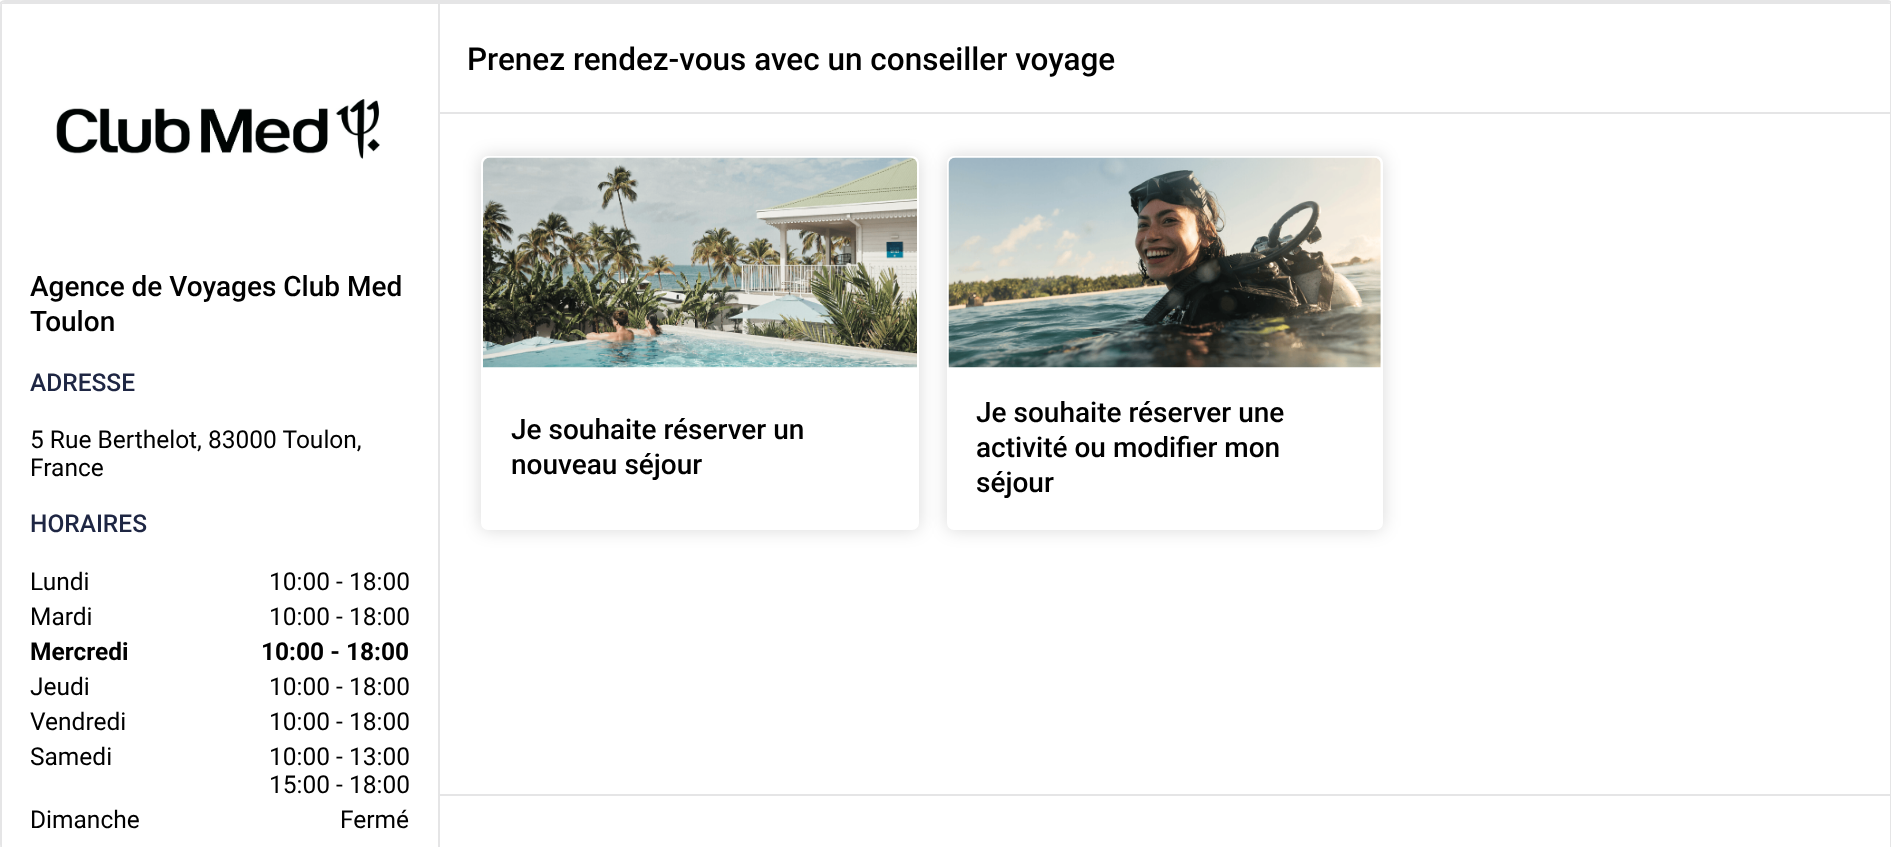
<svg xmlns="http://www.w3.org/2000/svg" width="1891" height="847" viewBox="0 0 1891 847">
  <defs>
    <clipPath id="clip1"><rect y="2" width="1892" height="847" rx="5"/></clipPath>
  </defs>
  <rect width="100%" height="100%" fill="#fff"/>
  <rect x="-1" y="1" width="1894" height="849" rx="6" fill="none" stroke="#e5e5e6" stroke-width="2"/>
  <g clip-path="url(#clip1)">
    <path d="M0 2h438v2H0z" fill="#e5e5e6"/>
    <path d="M0 2h2v845H0z" fill="#e5e5e6"/>
  </g>
  <image x="56" y="99" width="324" height="60" href="img/1.png"/>
  <path d="M438 2V796H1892V7C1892 4 1890 2 1887 2ZM440 4V794H1890V4Z" fill="#e5e5e6" fill-rule="evenodd"/>
  <path d="M439 112h1451v2H439z" fill="#e5e5e6"/>
  <rect x="481" y="156" width="438" height="374" rx="7" fill="#00000026" filter="blur(9px)"/>
  <rect x="482" y="157" width="436" height="372" rx="6" fill="#fff" stroke="#fff" stroke-width="2"/>
  <image x="483" y="157" width="434" height="211" href="img/2.png"/>
  <rect x="947" y="156" width="436" height="374" rx="7" fill="#00000026" filter="blur(9px)"/>
  <rect x="948" y="157" width="434" height="372" rx="6" fill="#fff" stroke="#fff" stroke-width="2"/>
  <image x="948" y="157" width="433" height="211" href="img/3.png"/>
  <path d="M1890 796h1v51H1890z" fill="#e5e5e6"/>
  <path d="M438 796h2v51H438z" fill="#e5e5e6"/>
  <g font-family="Roboto" font-size="28" font-weight="500" fill="#000">
    <text x="30" y="296">Agence de Voyages Club Med</text>
    <text x="30" y="331">Toulon</text>
  </g>
  <text x="30" y="391" font-family="Roboto" font-size="24.5" font-weight="500" fill="#1e2643">ADRESSE</text>
  <g font-family="Roboto" font-size="24.5" fill="#000">
    <text x="30" y="448">5 Rue Berthelot, 83000 Toulon,</text>
    <text x="30" y="476">France</text>
  </g>
  <text x="30" y="532" font-family="Roboto" font-size="24.5" font-weight="500" fill="#1e2643">HORAIRES</text>
  <g font-family="Roboto" font-size="24.5" fill="#000">
    <text x="30" y="590">Lundi</text>
    <text x="269" y="590">10:00 - 18:00</text>
    <text x="30" y="625">Mardi</text>
    <text x="269" y="625">10:00 - 18:00</text>
  </g>
  <g font-family="Roboto" font-size="24.5" font-weight="bold" fill="#000">
    <text x="30" y="660">Mercredi</text>
    <text x="261" y="660">10:00 - 18:00</text>
  </g>
  <g font-family="Roboto" font-size="24.5" fill="#000">
    <text x="30" y="695">Jeudi</text>
    <text x="269" y="695">10:00 - 18:00</text>
    <text x="30" y="730">Vendredi</text>
    <text x="269" y="730">10:00 - 18:00</text>
    <text x="30" y="765">Samedi</text>
    <text x="269" y="765">10:00 - 13:00</text>
    <text x="269" y="793">15:00 - 18:00</text>
    <text x="30" y="828">Dimanche</text>
    <text x="340" y="828">Fermé</text>
  </g>
  <text x="467" y="70" font-family="Roboto" font-size="31.5" font-weight="500" fill="#000">Prenez rendez-vous avec un conseiller voyage</text>
  <g font-family="Roboto" font-size="28" font-weight="500" fill="#000">
    <text x="511" y="439">Je souhaite réserver un</text>
    <text x="511" y="474">nouveau séjour</text>
    <text x="976" y="422">Je souhaite réserver une</text>
    <text x="976" y="457">activité ou modifier mon</text>
    <text x="976" y="492">séjour</text>
  </g>
</svg>
